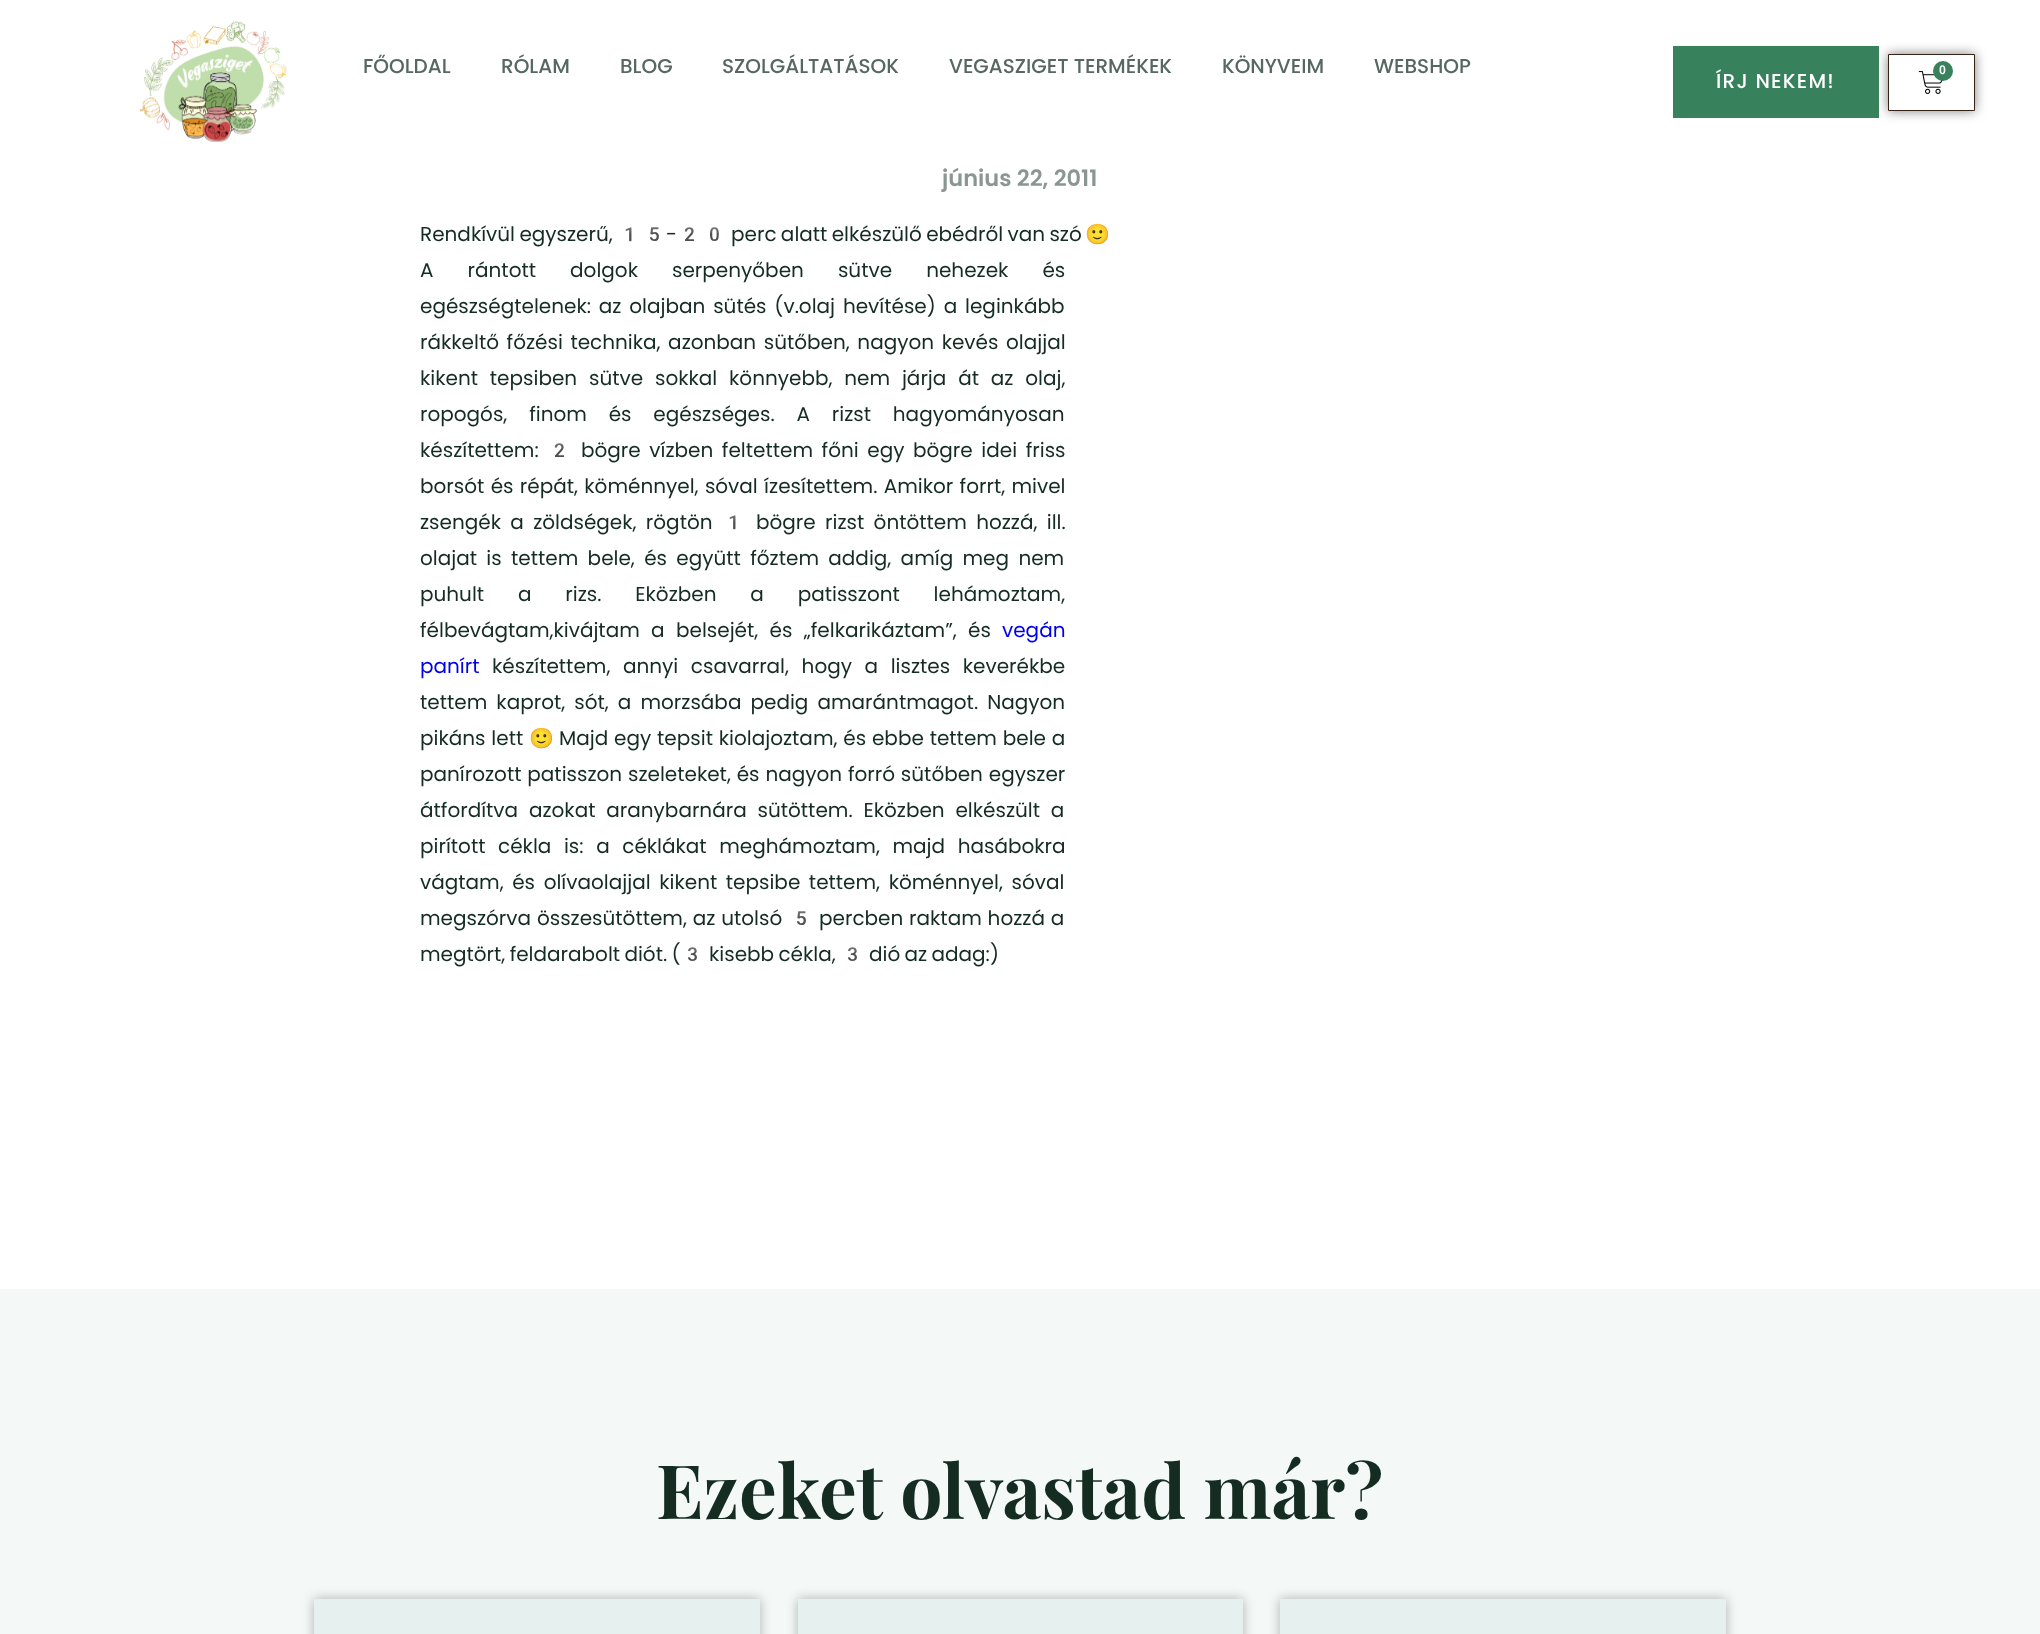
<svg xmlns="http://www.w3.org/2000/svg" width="2040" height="1634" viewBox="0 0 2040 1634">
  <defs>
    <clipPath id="clip1"><path d="M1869 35H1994V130H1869ZM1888 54H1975V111H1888Z" clip-rule="evenodd"/></clipPath>
  </defs>
  <rect width="100%" height="100%" fill="#fff"/>
  <image x="139" y="21" width="148" height="122" href="img/1.png"/>
  <g clip-path="url(#clip1)">
    <path d="M1888 54h87v57H1888z" fill="#00000080" filter="blur(6px)"/>
  </g>
  <path d="M1673 46h206v72H1673z" fill="#38815d"/>
  <path d="M1888.5 54.5h86v56H1888.5z" fill="none" stroke="#382117"/>
  <image x="1918" y="71" width="24" height="23" href="img/2.png"/>
  <circle cx="1943" cy="71" r="10" fill="#39815c"/>
  <path d="M0 1289h2040v345H0z" fill="#f4f9f8"/>
  <path d="M314 1599h446v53H314z" fill="#0000004a" filter="blur(6px)"/>
  <path d="M314 1599h446v35H314z" fill="#e6f0ef"/>
  <path d="M798 1599h445v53H798z" fill="#0000004a" filter="blur(6px)"/>
  <path d="M798 1599h445v35H798z" fill="#e6f0ef"/>
  <path d="M1280 1599h446v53H1280z" fill="#0000004a" filter="blur(6px)"/>
  <path d="M1280 1599h446v35H1280z" fill="#e6f0ef"/>
  <g font-family="Poppins" font-size="20" font-weight="500" fill="#576761">
    <text x="363" y="73">FŐOLDAL</text>
    <text x="501" y="73">RÓLAM</text>
    <text x="620" y="73">BLOG</text>
    <text x="722" y="73">SZOLGÁLTATÁSOK</text>
    <text x="949" y="73">VEGASZIGET TERMÉKEK</text>
    <text x="1222" y="73">KÖNYVEIM</text>
    <text x="1374" y="73">WEBSHOP</text>
  </g>
  <text x="1716" y="88" font-family="Poppins" font-size="20" font-weight="500" letter-spacing="1.25" fill="#fff">ÍRJ NEKEM!</text>
  <text x="1939" y="74" font-family="Roboto" font-size="12" font-weight="600" fill="#fff">0</text>
  <text x="942" y="186" font-family="Poppins" font-size="22.5" font-weight="600" fill="#8a9691">június 22, 2011</text>
  <text x="420" y="241" word-spacing="-1" font-family="Poppins" font-size="20" fill="#152c23">Rendkívül egyszerű,</text>
  <text x="617" y="241" font-family="Noto Color Emoji" font-size="20" fill="#152c23">15</text>
  <text x="666" y="241" font-family="Poppins" font-size="20" fill="#152c23">-</text>
  <text x="677" y="241" font-family="Noto Color Emoji" font-size="20" fill="#152c23">20</text>
  <text x="731" y="241" word-spacing="-1" font-family="Poppins" font-size="20" fill="#152c23">perc alatt elkészülő ebédről van szó</text>
  <text x="1085" y="241" font-family="Noto Color Emoji" font-size="20" fill="#152c23">🙂</text>
  <g font-family="Poppins" font-size="20" fill="#152c23">
    <text x="420" y="277" word-spacing="28.75">A rántott dolgok serpenyőben sütve nehezek és</text>
    <text x="420" y="313" word-spacing="2.5">egészségtelenek: az olajban sütés (v.olaj hevítése) a leginkább</text>
    <text x="420" y="349" word-spacing="2.25">rákkeltő főzési technika, azonban sütőben, nagyon kevés olajjal</text>
    <text x="420" y="385" word-spacing="6.5">kikent tepsiben sütve sokkal könnyebb, nem járja át az olaj,</text>
    <text x="420" y="421" word-spacing="16.5">ropogós, finom és egészséges. A rizst hagyományosan</text>
    <text x="420" y="457">készítettem:</text>
  </g>
  <text x="547" y="457" font-family="Noto Color Emoji" font-size="20" fill="#152c23">2</text>
  <g font-family="Poppins" font-size="20" fill="#152c23">
    <text x="581" y="457" word-spacing="3.25">bögre vízben feltettem főni egy bögre idei friss</text>
    <text x="420" y="493" word-spacing="1">borsót és répát, köménnyel, sóval ízesítettem. Amikor forrt, mivel</text>
    <text x="420" y="529" word-spacing="4">zsengék a zöldségek, rögtön</text>
  </g>
  <text x="721" y="529" font-family="Noto Color Emoji" font-size="20" fill="#152c23">1</text>
  <g font-family="Poppins" font-size="20" fill="#152c23">
    <text x="756" y="529" word-spacing="4">bögre rizst öntöttem hozzá, ill.</text>
    <text x="420" y="565" word-spacing="4">olajat is tettem bele, és együtt főztem addig, amíg meg nem</text>
    <text x="420" y="601" word-spacing="28.5">puhult a rizs. Eközben a patisszont lehámoztam,</text>
    <text x="420" y="637" word-spacing="6">félbevágtam,kivájtam a belsejét, és „felkarikáztam”, és</text>
  </g>
  <g font-family="Poppins" font-size="20" fill="#00e">
    <text x="1002" y="637">vegán</text>
    <text x="420" y="673">panírt</text>
  </g>
  <g font-family="Poppins" font-size="20" fill="#152c23">
    <text x="492" y="673" word-spacing="7.25">készítettem, annyi csavarral, hogy a lisztes keverékbe</text>
    <text x="420" y="709" word-spacing="3.75">tettem kaprot, sót, a morzsába pedig amarántmagot. Nagyon</text>
    <text x="420" y="745" word-spacing="0.5">pikáns lett</text>
  </g>
  <text x="529" y="745" font-family="Noto Color Emoji" font-size="20" fill="#152c23">🙂</text>
  <g font-family="Poppins" font-size="20" fill="#152c23">
    <text x="559" y="745" word-spacing="0.5">Majd egy tepsit kiolajoztam, és ebbe tettem bele a</text>
    <text x="420" y="781" word-spacing="0.5">panírozott patisszon szeleteket, és nagyon forró sütőben egyszer</text>
    <text x="420" y="817" word-spacing="5.5">átfordítva azokat aranybarnára sütöttem. Eközben elkészült a</text>
    <text x="420" y="853" word-spacing="7.25">pirított cékla is: a céklákat meghámoztam, majd hasábokra</text>
    <text x="420" y="889" word-spacing="3.25">vágtam, és olívaolajjal kikent tepsibe tettem, köménnyel, sóval</text>
    <text x="420" y="925" word-spacing="0.5">megszórva összesütöttem, az utolsó</text>
  </g>
  <text x="789" y="925" font-family="Noto Color Emoji" font-size="20" fill="#152c23">5</text>
  <g font-family="Poppins" font-size="20" fill="#152c23">
    <text x="819" y="925" word-spacing="0.5">percben raktam hozzá a</text>
    <text x="420" y="961" word-spacing="-1">megtört, feldarabolt diót. (</text>
  </g>
  <text x="680" y="961" font-family="Noto Color Emoji" font-size="20" fill="#152c23">3</text>
  <text x="709" y="961" word-spacing="-1" font-family="Poppins" font-size="20" fill="#152c23">kisebb cékla,</text>
  <text x="840" y="961" font-family="Noto Color Emoji" font-size="20" fill="#152c23">3</text>
  <text x="869" y="961" word-spacing="-1" font-family="Poppins" font-size="20" fill="#152c23">dió az adag:)</text>
  <text x="656" y="1519" font-family="Playfair Display" font-size="75" font-weight="bold" fill="#152c23">Ezeket olvastad már?</text>
</svg>
